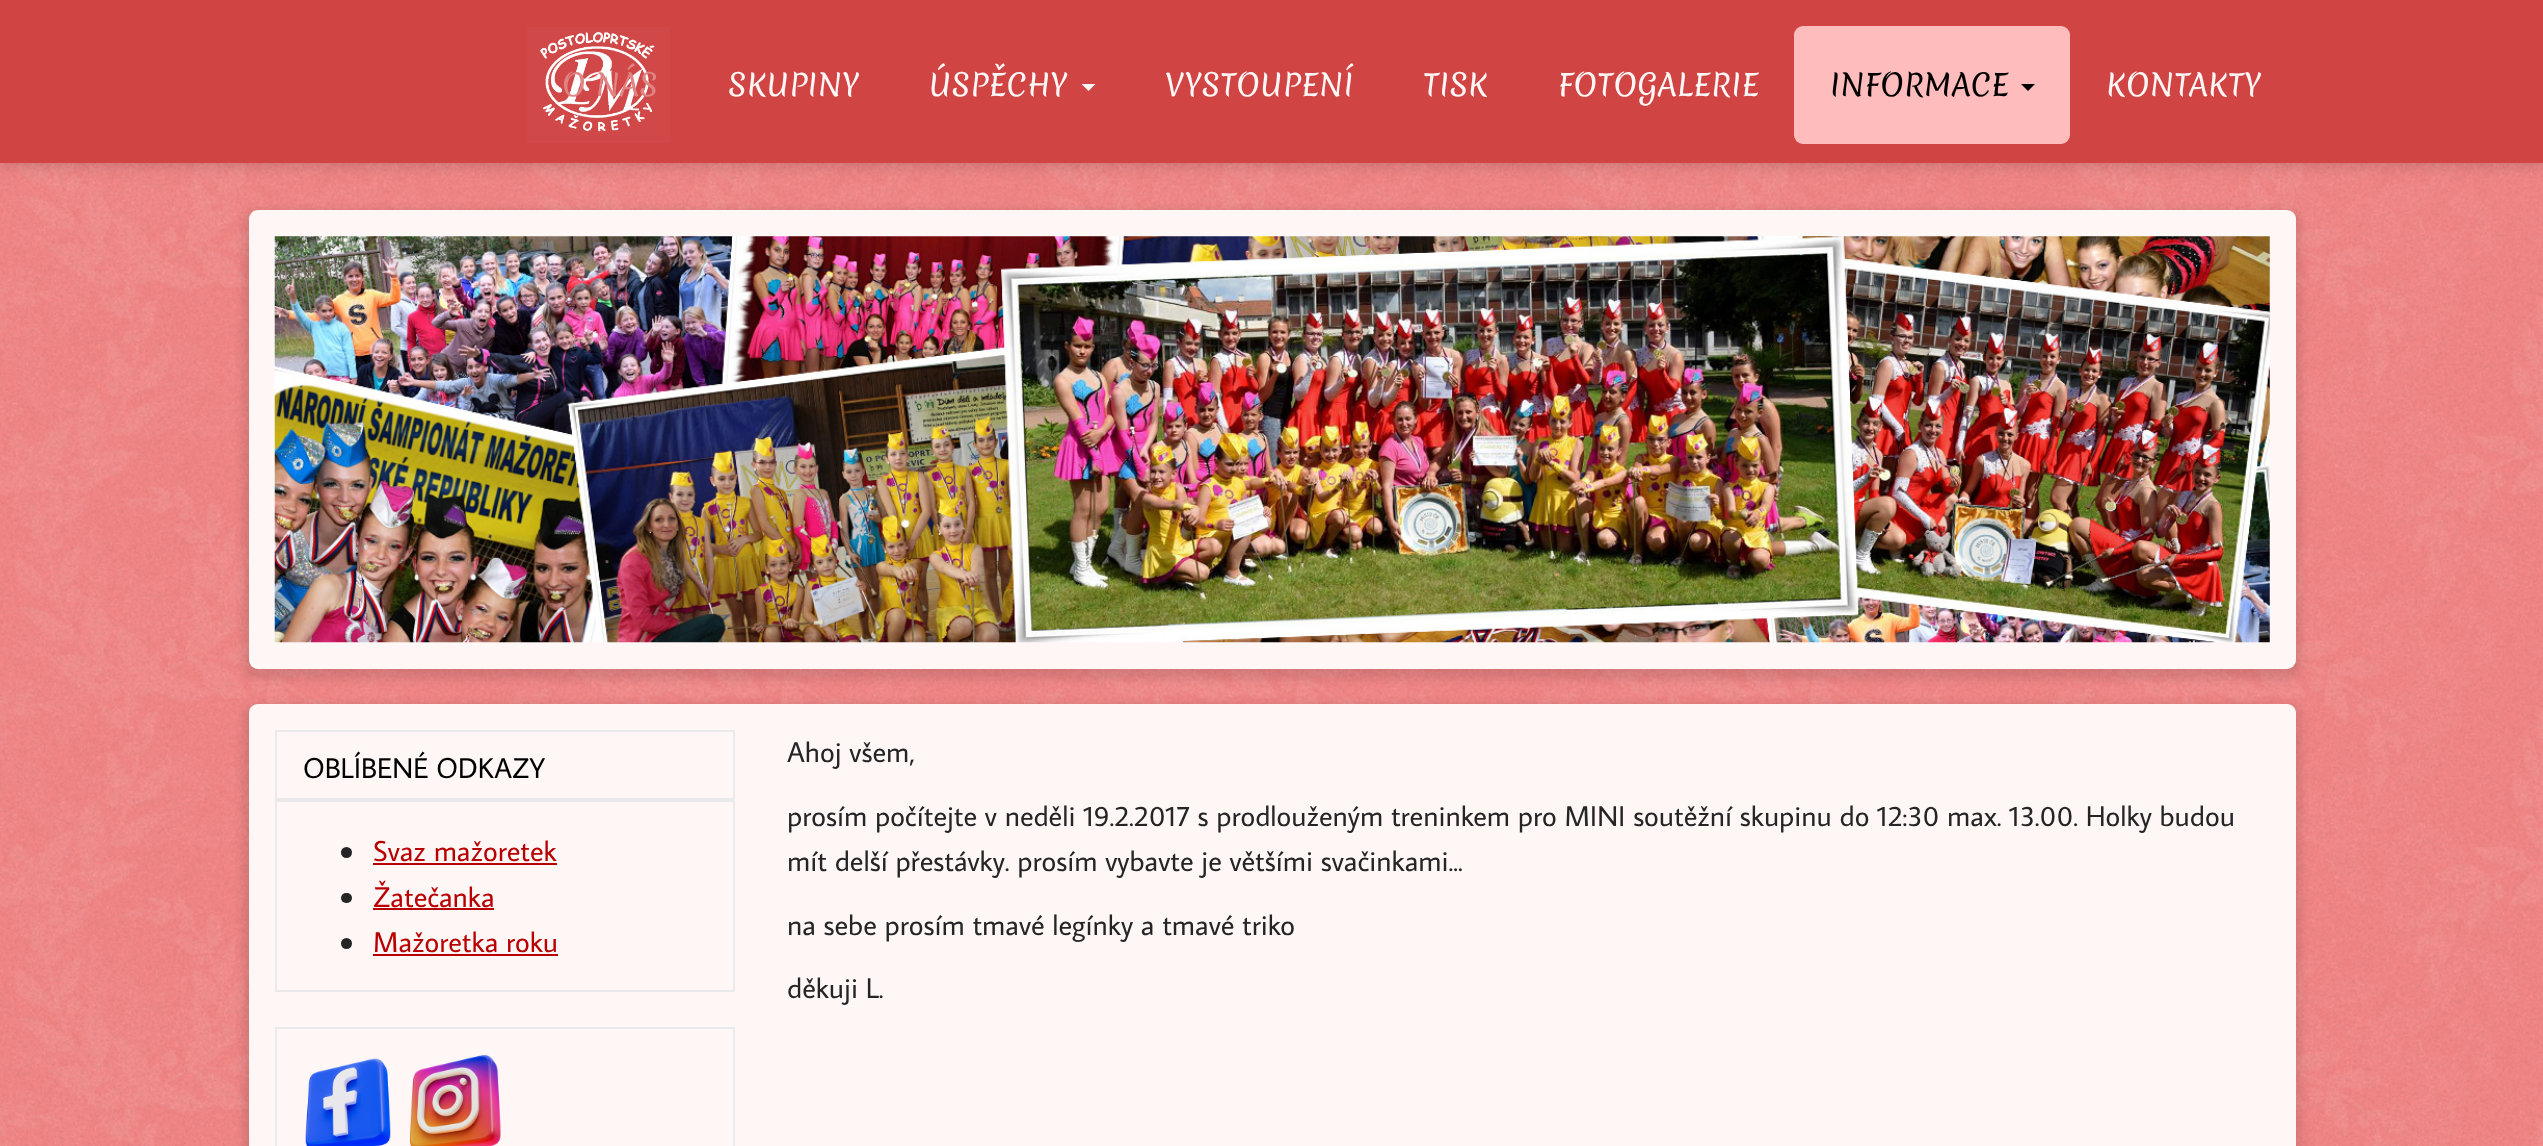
<svg xmlns="http://www.w3.org/2000/svg" width="2543" height="1146" viewBox="0 0 2543 1146">
  <rect width="100%" height="100%" fill="#fff"/>
  <image x="0" y="163" width="2543" height="983" href="img/1.png"/>
  <path d="M0 0h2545v163H0z" fill="#00000033" filter="blur(9px)"/>
  <path d="M0 0h2543v163H0z" fill="#d04444"/>
  <image x="527" y="27" width="143" height="116" href="img/2.png"/>
  <path d="M1081.5 84H1095.5L1088.5 91Z" fill="#fff6f6"/>
  <rect x="1794" y="26" width="276" height="118" rx="9" fill="#ffbcbc"/>
  <path d="M2021 84H2035L2028 91Z" fill="#000"/>
  <rect x="243" y="210" width="2058" height="469" rx="14" fill="#0000001a" filter="blur(4.5px)"/>
  <rect x="249" y="210" width="2047" height="459" rx="9" fill="#fff6f6"/>
  <image x="274" y="236" width="1996" height="407" href="img/3.png"/>
  <rect x="243" y="704" width="2058" height="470" rx="14" fill="#0000001a" filter="blur(4.5px)"/>
  <path d="M258 704H2287C2292 704 2296 708 2296 713V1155H249V713C249 708 253 704 258 704Z" fill="#fff6f6"/>
  <path d="M276 731h458v68H276z" fill="none" stroke="#eaeaea" stroke-width="2"/>
  <path d="M276 801h458v190H276z" fill="none" stroke="#eaeaea" stroke-width="2"/>
  <circle cx="346.5" cy="852.5" r="5.5" fill="#252525"/>
  <path d="M373 863h184v2H373z" fill="#b80000"/>
  <rect x="341" y="893" width="11" height="10" rx="5" fill="#252525"/>
  <path d="M373 908h121v2H373z" fill="#b80000"/>
  <circle cx="346.5" cy="943.5" r="5.5" fill="#252525"/>
  <path d="M373 954h185v2H373z" fill="#b80000"/>
  <path d="M276 1028h458v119H276z" fill="none" stroke="#eaeaea" stroke-width="2"/>
  <image x="305" y="1058" width="86" height="88" href="img/4.png"/>
  <image x="409" y="1055" width="92" height="91" href="img/5.png"/>
  <text x="562" y="96" font-family="Merienda" font-size="29.75" fill="#e08484">O NÁS</text>
  <g font-family="Merienda" font-size="29.75" fill="#fff6f6">
    <text x="728" y="96">SKUPINY</text>
    <text x="929" y="96">ÚSPĚCHY</text>
    <text x="1165" y="96">VYSTOUPENÍ</text>
    <text x="1423" y="96">TISK</text>
    <text x="1558" y="96">FOTOGALERIE</text>
  </g>
  <text x="1830" y="96" font-family="Merienda" font-size="29.75" fill="#000">INFORMACE</text>
  <text x="2106" y="96" font-family="Merienda" font-size="29.75" fill="#fff6f6">KONTAKTY</text>
  <text x="303" y="778" font-family="Average Sans" font-size="28.65" fill="#000">OBLÍBENÉ ODKAZY</text>
  <g font-family="Average Sans" font-size="28.65" fill="#b80000">
    <text x="373" y="861">Svaz mažoretek</text>
    <text x="373" y="907">Žatečanka</text>
    <text x="373" y="952">Mažoretka roku</text>
  </g>
  <g font-family="Average Sans" font-size="28.65" fill="#252525">
    <text x="787" y="762">Ahoj všem,</text>
    <text x="787" y="826">prosím počítejte v neděli 19.2.2017 s prodlouženým treninkem pro MINI soutěžní skupinu do 12:30 max. 13.00. Holky budou</text>
    <text x="787" y="871">mít delší přestávky. prosím vybavte je většími svačinkami...</text>
    <text x="787" y="935">na sebe prosím tmavé legínky a tmavé triko</text>
    <text x="787" y="998">děkuji L.</text>
  </g>
</svg>
